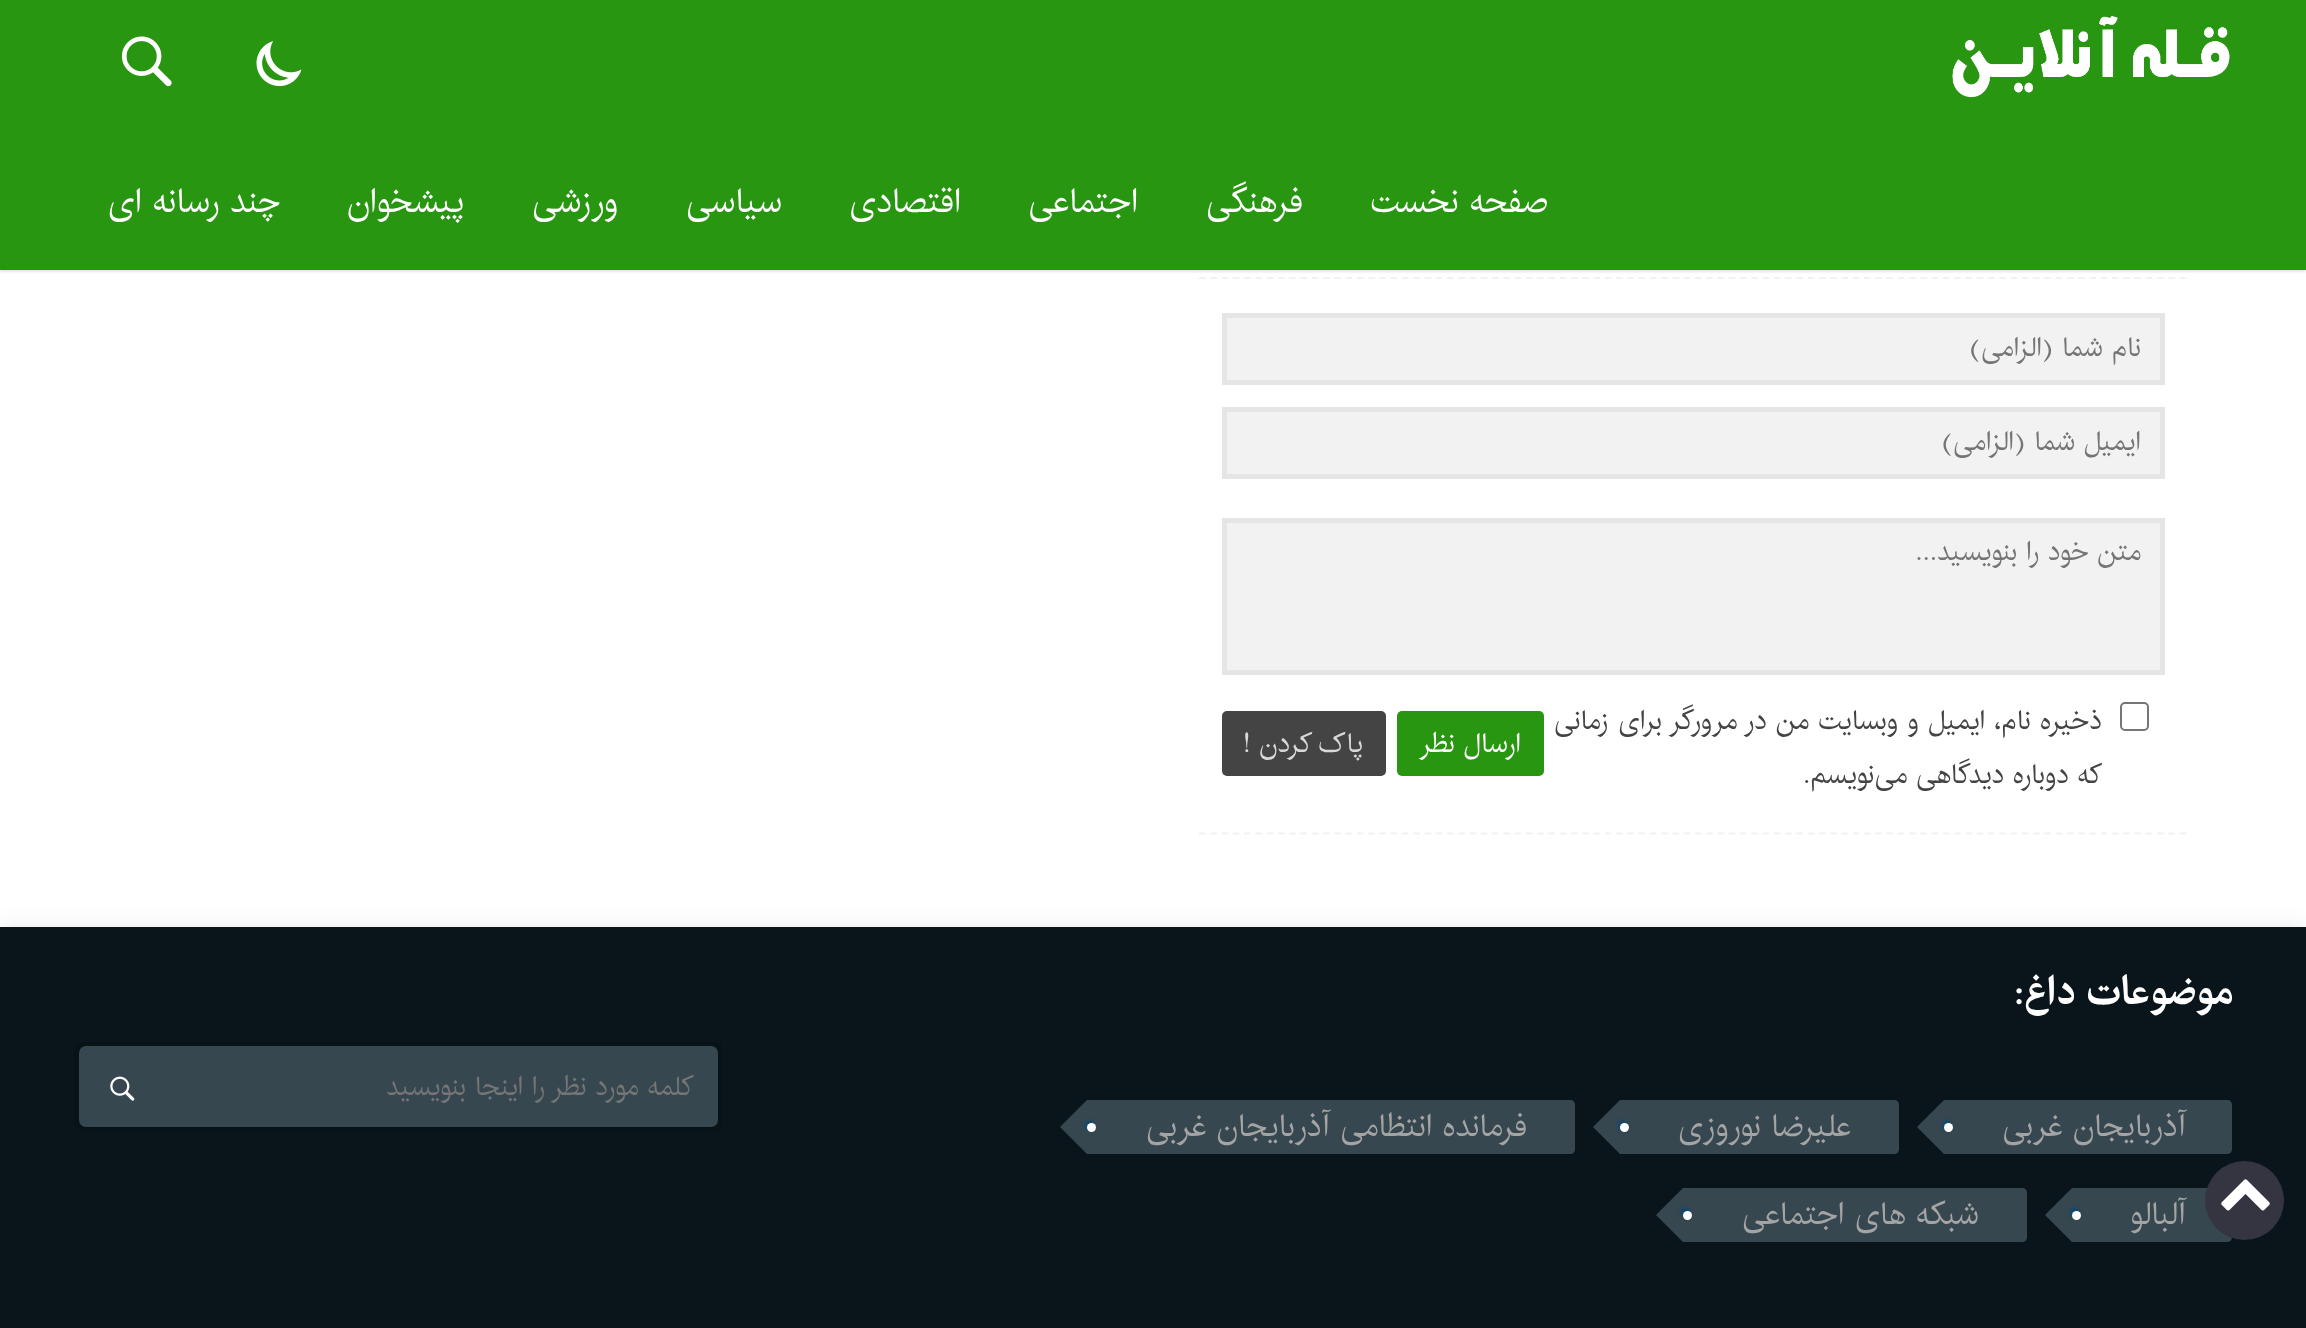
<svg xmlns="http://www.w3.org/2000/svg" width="2306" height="1328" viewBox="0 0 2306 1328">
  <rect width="100%" height="100%" fill="#fff"/>
  <path d="M0 934h2306v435H0z" fill="#00000029" filter="blur(13.5px)"/>
  <path d="M0 927h2306v401H0z" fill="#09151b"/>
  <path d="M2072 1188H2227C2230 1188 2232 1190 2232 1193V1237C2232 1240 2230 1242 2227 1242H2072Z" fill="#37474f"/>
  <circle cx="2244.5" cy="1200.5" r="39.5" fill="#343541"/>
  <image x="2221" y="1179" width="49" height="32" href="img/1.png"/>
  <path d="M0 2h2306v270H0z" fill="#0000001a" filter="blur(1px)"/>
  <path d="M0 0h2306v270H0z" fill="#299612"/>
  <image x="1952" y="15" width="278" height="83" href="img/2.png"/>
  <image x="256" y="41" width="46" height="46" href="img/3.png"/>
  <image x="121" y="36" width="51" height="51" href="img/4.png"/>
  <path d="M1199 278H2187" fill="none" stroke="#f2f2f2" stroke-width="2.2" stroke-dasharray="6.75 4.52"/>
  <path d="M1199 833.5H2187" fill="none" stroke="#f2f2f2" stroke-width="2.2" stroke-dasharray="6.75 4.52"/>
  <path d="M1224.5 315.5h938v67H1224.5z" fill="#f2f2f2" stroke="#e5e5e5" stroke-width="5"/>
  <path d="M1224.5 409.5h938v67H1224.5z" fill="#f2f2f2" stroke="#e5e5e5" stroke-width="5"/>
  <path d="M1224.5 520.5h938v152H1224.5z" fill="#f2f2f2" stroke="#e5e5e5" stroke-width="5"/>
  <rect x="2121" y="703" width="27" height="27" rx="4" fill="none" stroke="#767676" stroke-width="2"/>
  <rect x="1397" y="711" width="147" height="65" rx="5" fill="#299612"/>
  <rect x="1222" y="711" width="164" height="65" rx="5" fill="#444"/>
  <path d="M1944 1100H2227C2230 1100 2232 1102 2232 1105V1149C2232 1152 2230 1154 2227 1154H1944Z" fill="#37474f"/>
  <path d="M1944 1100V1154L1917 1127Z" fill="#37474f"/>
  <rect x="1942" y="1121" width="9" height="9" rx="4.5" fill="#004977" filter="blur(2px)"/>
  <circle cx="1948.5" cy="1127.5" r="4.5" fill="#fff"/>
  <path d="M1620 1100H1894C1897 1100 1899 1102 1899 1105V1149C1899 1152 1897 1154 1894 1154H1620Z" fill="#37474f"/>
  <path d="M1620 1100V1154L1593 1127Z" fill="#37474f"/>
  <rect x="1618" y="1121" width="9" height="9" rx="4.5" fill="#004977" filter="blur(2px)"/>
  <circle cx="1624.5" cy="1127.5" r="4.5" fill="#fff"/>
  <path d="M1087 1100H1570C1573 1100 1575 1102 1575 1105V1149C1575 1152 1573 1154 1570 1154H1087Z" fill="#37474f"/>
  <path d="M1087 1100V1154L1060 1127Z" fill="#37474f"/>
  <rect x="1085" y="1121" width="9" height="9" rx="4.5" fill="#004977" filter="blur(2px)"/>
  <circle cx="1091.5" cy="1127.5" r="4.5" fill="#fff"/>
  <path d="M2072 1188V1242L2045 1215Z" fill="#37474f"/>
  <rect x="2070" y="1208" width="9" height="9" rx="4.5" fill="#004977" filter="blur(2px)"/>
  <circle cx="2076.5" cy="1215.5" r="4.5" fill="#fff"/>
  <path d="M1683 1188H2022C2025 1188 2027 1190 2027 1193V1237C2027 1240 2025 1242 2022 1242H1683Z" fill="#37474f"/>
  <path d="M1683 1188V1242L1656 1215Z" fill="#37474f"/>
  <rect x="1681" y="1208" width="9" height="9" rx="4.5" fill="#004977" filter="blur(2px)"/>
  <circle cx="1687.5" cy="1215.5" r="4.5" fill="#fff"/>
  <path d="M85 1044.5H719.5V1129.5H85C80.5 1129.5 76.5 1125.5 76.5 1121V1053C76.5 1048.5 80.5 1044.5 85 1044.5Z" fill="none" stroke="#081318" stroke-width="5"/>
  <rect x="79" y="1046" width="639" height="81" rx="7" fill="#37474f"/>
  <image x="110" y="1076" width="25" height="25" href="img/5.png"/>
  <g font-family="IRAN" font-size="33.75" direction="rtl" fill="#fff">
    <text x="1548" y="212">صفحه نخست</text>
    <text x="1303" y="212">فرهنگی</text>
    <text x="1138" y="212">اجتماعی</text>
    <text x="961" y="212">اقتصادی</text>
    <text x="782" y="212">سیاسی</text>
    <text x="618" y="212">ورزشی</text>
    <text x="464" y="212">پیشخوان</text>
    <text x="280" y="212">چند رسانه ای</text>
  </g>
  <g font-family="IRAN" font-size="27" direction="rtl" fill="#757575">
    <text x="2141" y="356">نام شما (الزامی)</text>
    <text x="2141" y="450">ایمیل شما (الزامی)</text>
    <text x="2141" y="560">متن خود را بنویسید...</text>
  </g>
  <g font-family="IRAN" font-size="27" direction="rtl" fill="#444">
    <text x="2102" y="729" word-spacing="0.75">ذخیره نام، ایمیل و وبسایت من در مرورگر برای زمانی</text>
    <text x="2102" y="783">که دوباره دیدگاهی می‌نویسم.</text>
  </g>
  <text x="1521" y="752" font-family="IRAN" font-size="27" direction="rtl" fill="#fff">ارسال نظر</text>
  <text x="1363" y="752" font-family="IRAN" font-size="27" direction="rtl" fill="#d9d9d9">پاک کردن !</text>
  <text x="2233" y="1004" font-family="IRAN" font-size="39.5" font-weight="bold" direction="rtl" fill="#fff">موضوعات داغ:</text>
  <g font-family="IRAN" font-size="31.5" direction="rtl" fill="#a5a4a4">
    <text x="2186" y="1136">آذربایجان غربی</text>
    <text x="1851" y="1136">علیرضا نوروزی</text>
    <text x="1527" y="1136">فرمانده انتظامی آذربایجان غربی</text>
    <text x="2186" y="1224">آلبالو</text>
    <text x="1979" y="1224">شبکه های اجتماعی</text>
  </g>
  <text x="694" y="1095" font-family="IRAN" font-size="27" direction="rtl" fill="#757575">كلمه مورد نظر را اينجا بنويسيد</text>
</svg>
